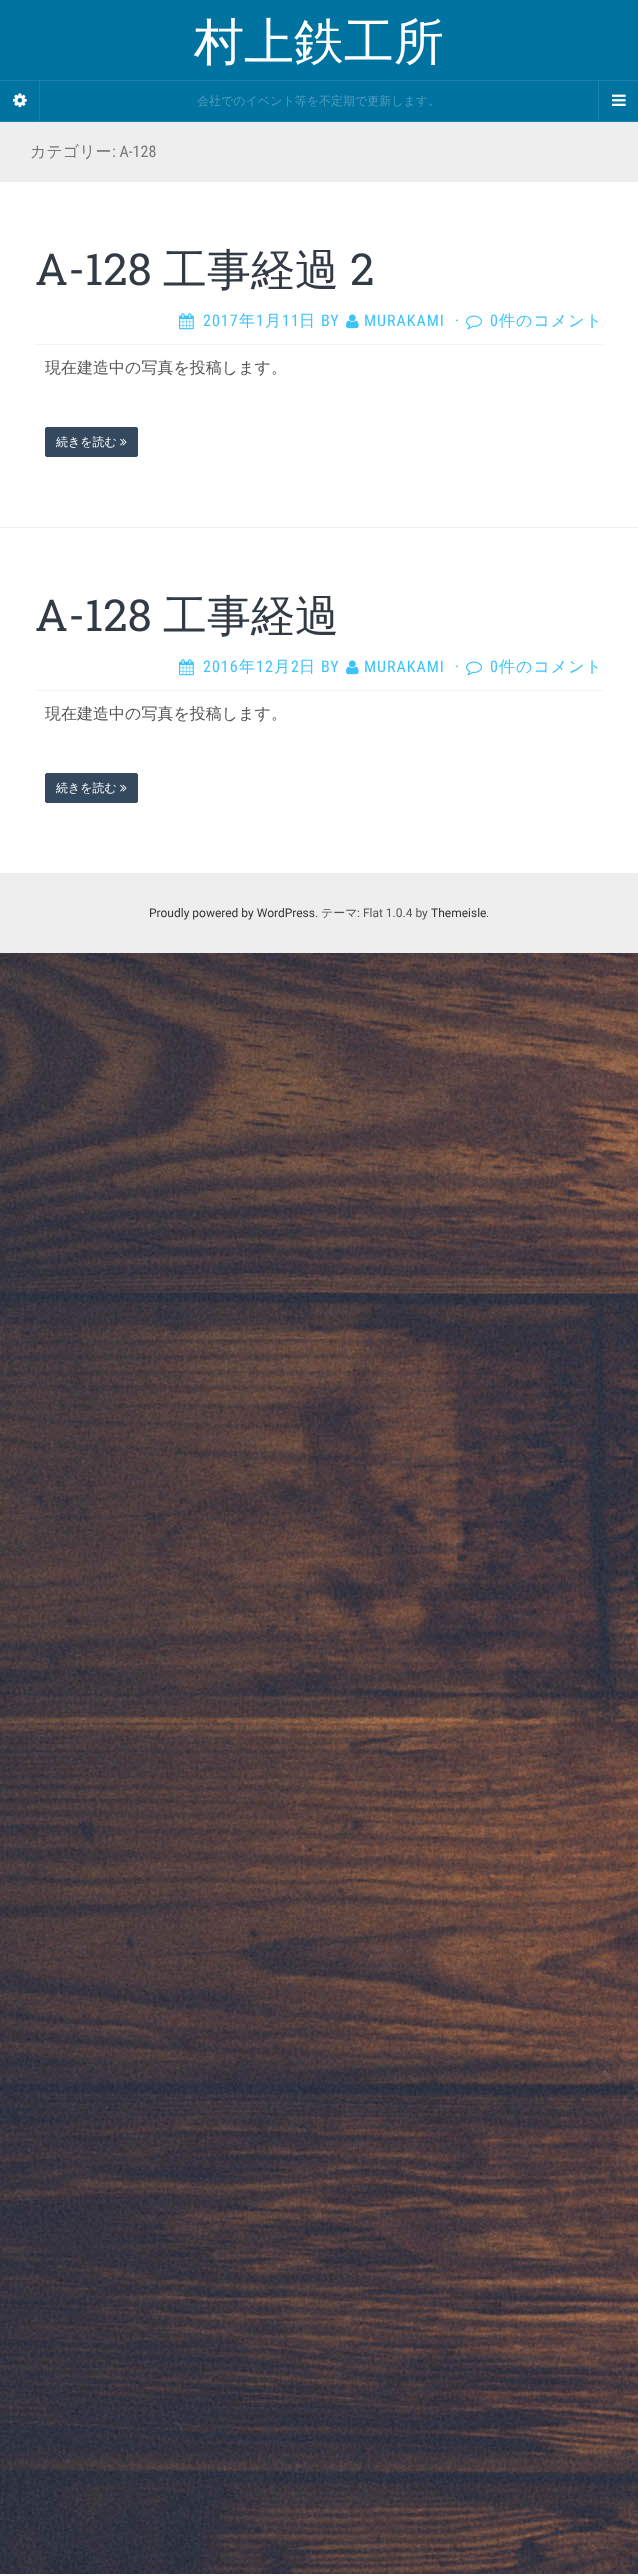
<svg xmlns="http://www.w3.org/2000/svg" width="638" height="2574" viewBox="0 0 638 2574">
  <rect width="100%" height="100%" fill="#fff"/>
  <image x="0" y="953" width="638" height="1621" href="img/1.png"/>
  <path d="M0 0h638v121H0z" fill="#0073a1"/>
  <path d="M39 81h1v40H39z" fill="#1a81aa"/>
  <image x="13" y="93" width="14" height="15" href="img/2.png"/>
  <path d="M0 121h638v1H0z" fill="#1a81aa"/>
  <path d="M0 80h638v1H0z" fill="#1a81aa"/>
  <path d="M598 81h1v40H598z" fill="#1a81aa"/>
  <image x="612" y="94" width="14" height="12" href="img/3.png"/>
  <path d="M0 122h638v60H0z" fill="#eee"/>
  <path d="M0 527h638v1H0z" fill="#eee"/>
  <path d="M35 344h568v1H35z" fill="#f3f3f3"/>
  <image x="179" y="313" width="15" height="17" href="img/4.png"/>
  <image x="346" y="314" width="13" height="15" href="img/5.png"/>
  <image x="466" y="315" width="16" height="15" href="img/6.png"/>
  <rect x="45.5" y="427.5" width="92" height="29" rx="1.5" fill="#34495e" stroke="#34495e"/>
  <image x="120" y="438" width="7" height="8" href="img/7.png"/>
  <path d="M35 690h568v1H35z" fill="#f3f3f3"/>
  <image x="179" y="659" width="15" height="17" href="img/4.png"/>
  <image x="346" y="660" width="13" height="15" href="img/5.png"/>
  <image x="466" y="661" width="16" height="15" href="img/6.png"/>
  <rect x="45.5" y="773.5" width="92" height="29" rx="1.5" fill="#34495e" stroke="#34495e"/>
  <image x="120" y="784" width="7" height="8" href="img/7.png"/>
  <path d="M0 873h638v80H0z" fill="#eee"/>
  <text x="194" y="59" font-family="WenQuanYi Zen Hei" font-size="50" font-weight="500" fill="#fff">村上鉄工所</text>
  <text x="197" y="105" font-family="WenQuanYi Zen Hei" font-size="12" font-weight="500" fill="#4d9dbd">会社でのイベント等を不定期で更新します。</text>
  <text x="30" y="157" font-family="WenQuanYi Zen Hei" font-size="16" font-weight="500" fill="#777">カテゴリー</text>
  <text x="112" y="157" font-family="Roboto Condensed" font-size="16" fill="#777">: A-128</text>
  <text x="35" y="285" font-family="Roboto Slab" font-size="44" fill="#323a45">A-128</text>
  <text x="163" y="285" font-family="WenQuanYi Zen Hei" font-size="44" font-weight="500" fill="#323a45">工事経過</text>
  <text x="350" y="285" font-family="Roboto Slab" font-size="44" fill="#323a45">2</text>
  <text x="203" y="326" font-family="Roboto Condensed" font-size="16" letter-spacing="1" fill="#3bc4fa">2017</text>
  <text x="239" y="326" font-family="WenQuanYi Zen Hei" font-size="16" font-weight="500" letter-spacing="1" fill="#3bc4fa">年</text>
  <text x="256" y="326" font-family="Roboto Condensed" font-size="16" letter-spacing="1" fill="#3bc4fa">1</text>
  <text x="265" y="326" font-family="WenQuanYi Zen Hei" font-size="16" font-weight="500" letter-spacing="1" fill="#3bc4fa">月</text>
  <text x="282" y="326" font-family="Roboto Condensed" font-size="16" letter-spacing="1" fill="#3bc4fa">11</text>
  <text x="299" y="326" font-family="WenQuanYi Zen Hei" font-size="16" font-weight="500" letter-spacing="1" fill="#3bc4fa">日</text>
  <g font-family="Roboto Condensed" font-size="16" letter-spacing="1" fill="#3bc4fa">
    <text x="321" y="326">BY</text>
    <text x="364" y="326">MURAKAMI</text>
    <text x="455" y="326">·</text>
    <text x="490" y="326">0</text>
  </g>
  <text x="499" y="326" font-family="WenQuanYi Zen Hei" font-size="16" font-weight="500" letter-spacing="1" fill="#3bc4fa">件のコメント</text>
  <text x="45" y="373" font-family="WenQuanYi Zen Hei" font-size="16" font-weight="500" fill="#555">現在建造中の写真を投稿します。</text>
  <text x="56" y="446" font-family="WenQuanYi Zen Hei" font-size="12" font-weight="500" fill="#fff">続きを読む</text>
  <text x="35" y="631" font-family="Roboto Slab" font-size="44" fill="#323a45">A-128</text>
  <text x="163" y="631" font-family="WenQuanYi Zen Hei" font-size="44" font-weight="500" fill="#323a45">工事経過</text>
  <text x="203" y="672" font-family="Roboto Condensed" font-size="16" letter-spacing="1" fill="#3bc4fa">2016</text>
  <text x="239" y="672" font-family="WenQuanYi Zen Hei" font-size="16" font-weight="500" letter-spacing="1" fill="#3bc4fa">年</text>
  <text x="256" y="672" font-family="Roboto Condensed" font-size="16" letter-spacing="1" fill="#3bc4fa">12</text>
  <text x="274" y="672" font-family="WenQuanYi Zen Hei" font-size="16" font-weight="500" letter-spacing="1" fill="#3bc4fa">月</text>
  <text x="291" y="672" font-family="Roboto Condensed" font-size="16" letter-spacing="1" fill="#3bc4fa">2</text>
  <text x="299" y="672" font-family="WenQuanYi Zen Hei" font-size="16" font-weight="500" letter-spacing="1" fill="#3bc4fa">日</text>
  <g font-family="Roboto Condensed" font-size="16" letter-spacing="1" fill="#3bc4fa">
    <text x="321" y="672">BY</text>
    <text x="364" y="672">MURAKAMI</text>
    <text x="455" y="672">·</text>
    <text x="490" y="672">0</text>
  </g>
  <text x="499" y="672" font-family="WenQuanYi Zen Hei" font-size="16" font-weight="500" letter-spacing="1" fill="#3bc4fa">件のコメント</text>
  <text x="45" y="719" font-family="WenQuanYi Zen Hei" font-size="16" font-weight="500" fill="#555">現在建造中の写真を投稿します。</text>
  <text x="56" y="792" font-family="WenQuanYi Zen Hei" font-size="12" font-weight="500" fill="#fff">続きを読む</text>
  <text x="149" y="917" font-family="Roboto" font-size="12" fill="#333">Proudly powered by WordPress</text>
  <text x="315" y="917" font-family="Roboto" font-size="12" fill="#555">.</text>
  <text x="321" y="917" font-family="WenQuanYi Zen Hei" font-size="12" font-weight="500" fill="#555">テーマ</text>
  <text x="357" y="917" font-family="Roboto" font-size="12" fill="#555">: Flat 1.0.4 by</text>
  <text x="431" y="917" font-family="Roboto" font-size="12" fill="#333">Themeisle</text>
  <text x="486" y="917" font-family="Roboto" font-size="12" fill="#555">.</text>
</svg>
